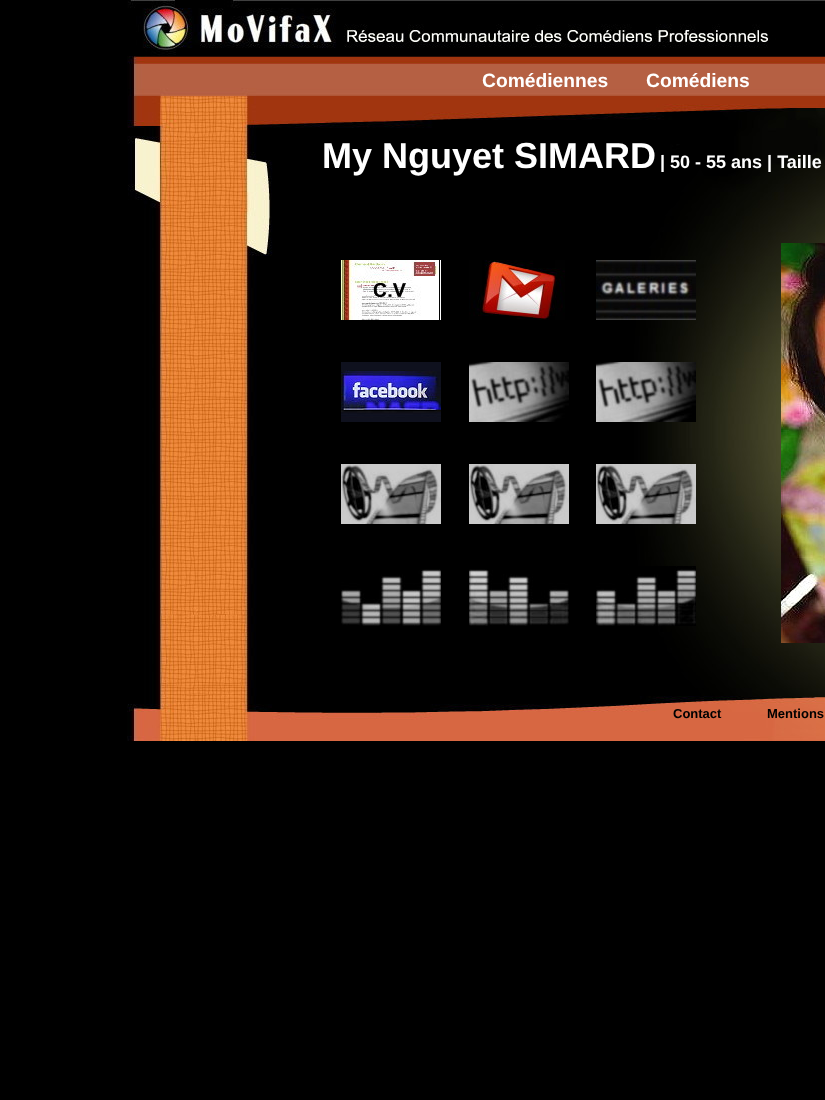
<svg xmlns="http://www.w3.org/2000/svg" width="825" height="1100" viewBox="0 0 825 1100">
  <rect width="100%" height="100%" fill="#000"/>
  <image x="127" y="0" width="698" height="741" href="img/1.png"/>
  <image x="341" y="260" width="100" height="60" href="img/2.png"/>
  <image x="469" y="260" width="96" height="60" href="img/3.png"/>
  <image x="596" y="260" width="100" height="60" href="img/4.png"/>
  <image x="341" y="362" width="100" height="60" href="img/5.png"/>
  <image x="469" y="362" width="100" height="60" href="img/6.png"/>
  <image x="596" y="362" width="100" height="60" href="img/6.png"/>
  <image x="341" y="464" width="100" height="60" href="img/7.png"/>
  <image x="469" y="464" width="100" height="60" href="img/7.png"/>
  <image x="596" y="464" width="100" height="60" href="img/7.png"/>
  <image x="341" y="569" width="100" height="57" href="img/8.png"/>
  <image x="469" y="569" width="100" height="57" href="img/9.png"/>
  <image x="596" y="566" width="100" height="60" href="img/10.png"/>
  <image x="781" y="243" width="44" height="400" href="img/11.png"/>
  <g font-family="Liberation Sans" font-size="19.25" font-weight="bold" fill="#fff">
    <text x="482" y="87">Comédiennes</text>
    <text x="646" y="87">Comédiens</text>
  </g>
  <text x="322" y="168" font-family="Liberation Sans" font-size="36" font-weight="bold" fill="#fff">My Nguyet SIMARD</text>
  <text x="660" y="168" font-family="Liberation Sans" font-size="18" font-weight="bold" fill="#fff">| 50 - 55 ans | Taille</text>
  <g font-family="Liberation Sans" font-size="13" font-weight="bold" fill="#000">
    <text x="673" y="718">Contact</text>
    <text x="767" y="718">Mentions</text>
  </g>
</svg>
